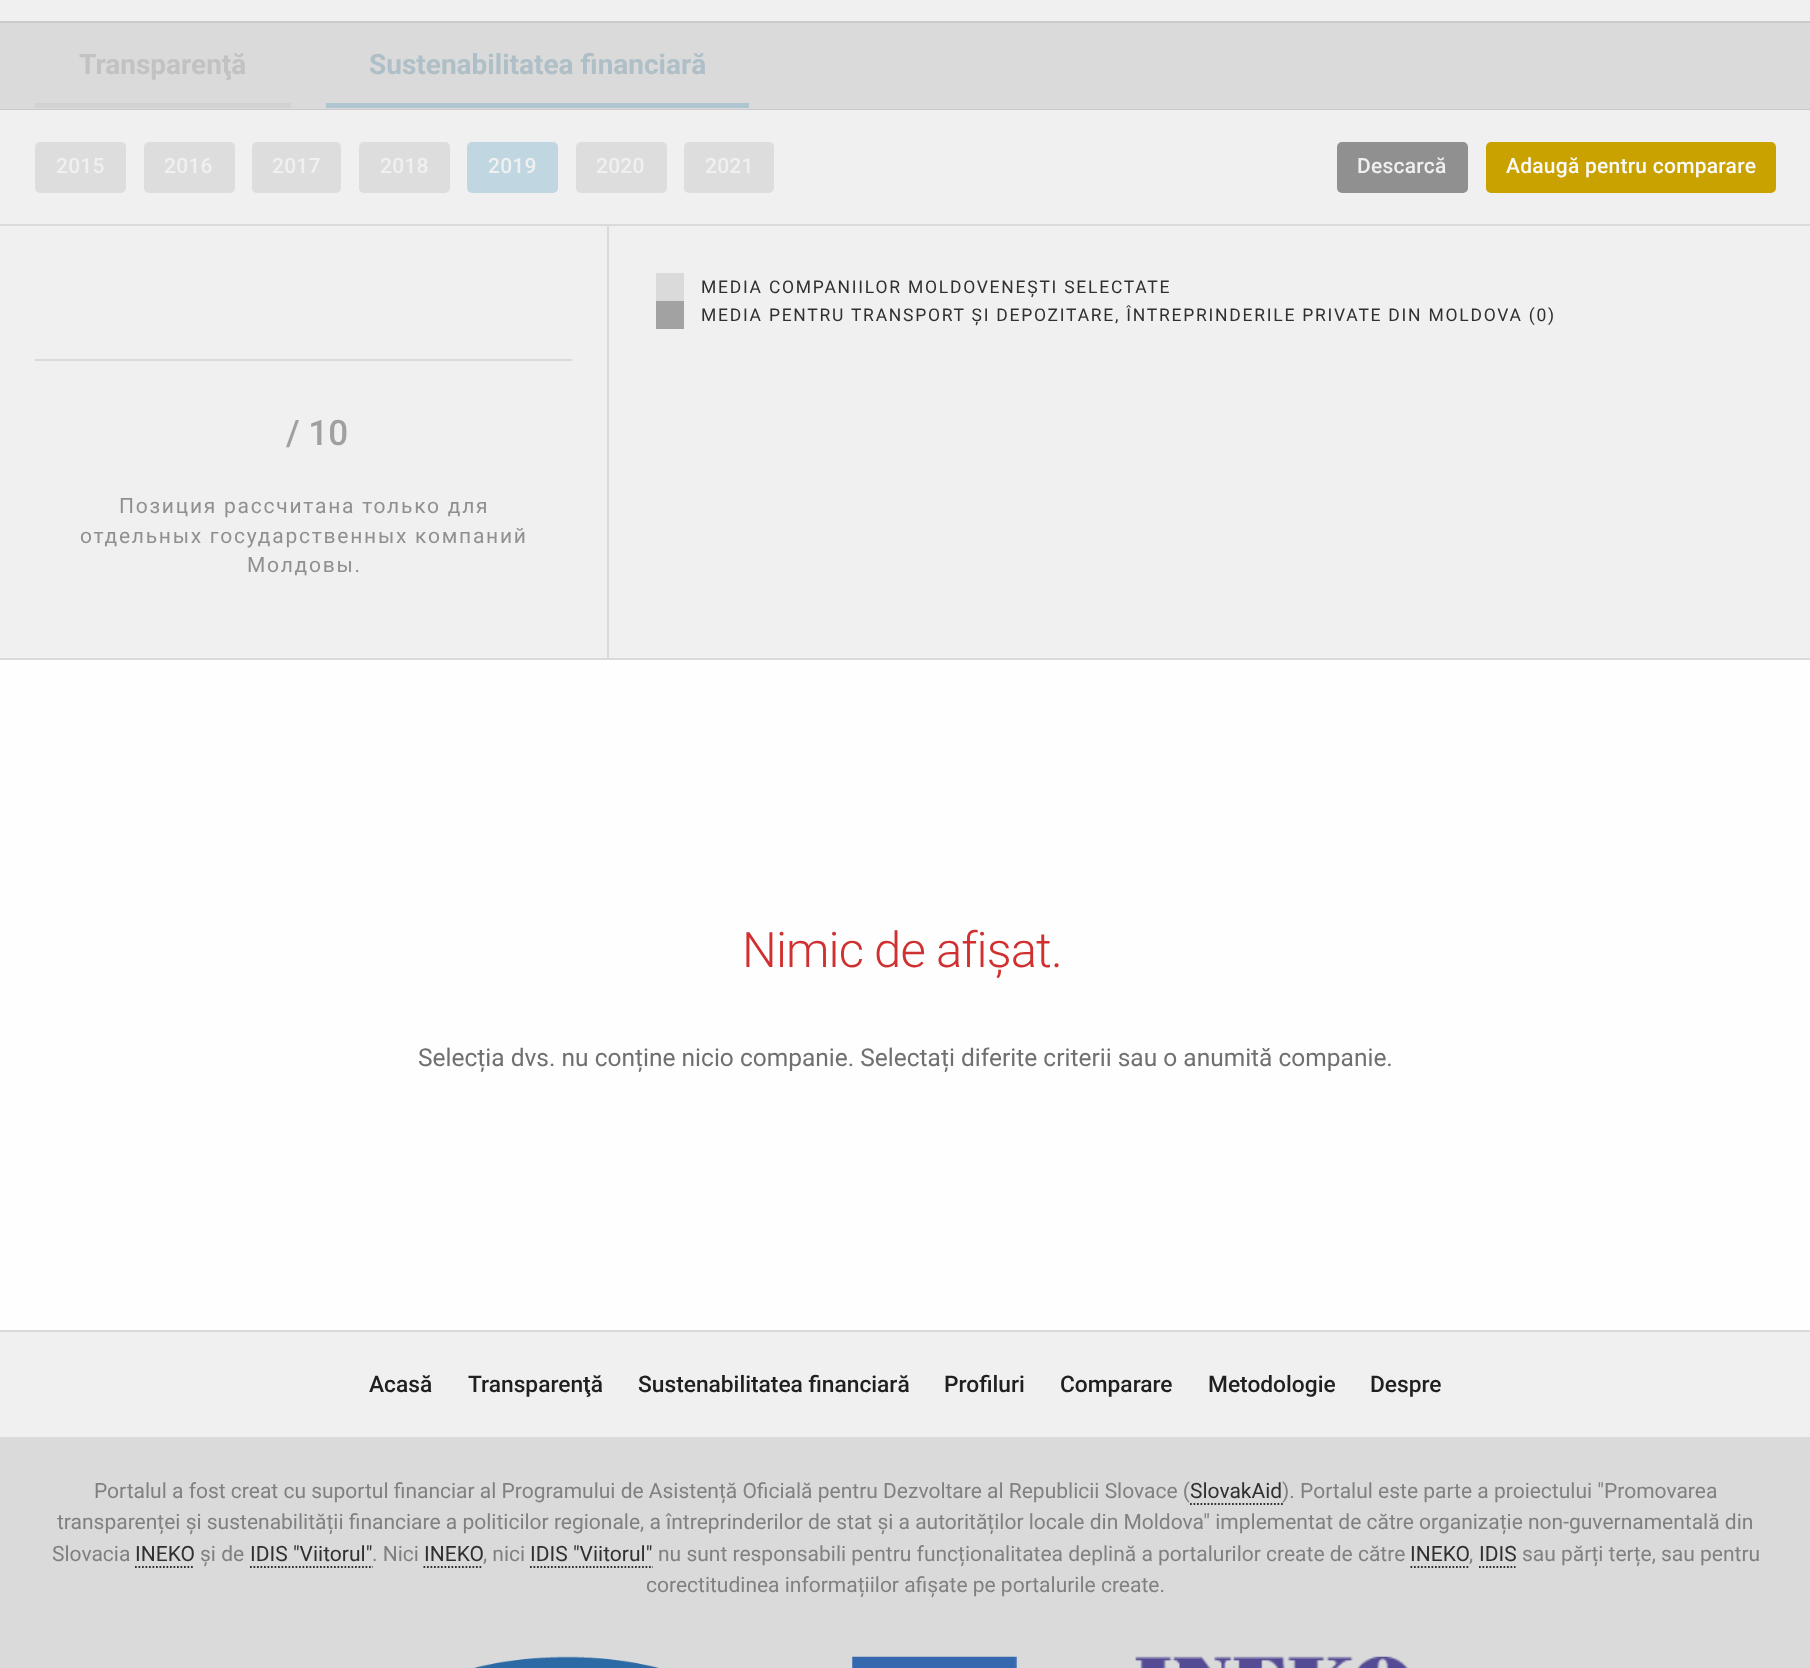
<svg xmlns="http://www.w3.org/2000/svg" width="1810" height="1668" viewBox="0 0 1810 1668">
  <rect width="100%" height="100%" fill="#dadada"/>
  <path d="M0 660h1810v670H0z" fill="#fefefe"/>
  <path d="M0 0h1810v21H0z" fill="#f0f0f0"/>
  <path d="M0 21h1810v2H0z" fill="#cacaca"/>
  <path d="M0 109h1810v1H0z" fill="#cacaca"/>
  <path d="M35 103h256v5H35z" fill="#d2d2d2"/>
  <path d="M326 103h423v5H326z" fill="#afc5d0"/>
  <path d="M0 110h1810v114H0z" fill="#f0f0f0"/>
  <rect x="35" y="142" width="91" height="51" rx="5" fill="#ddd"/>
  <rect x="144" y="142" width="91" height="51" rx="5" fill="#ddd"/>
  <rect x="252" y="142" width="89" height="51" rx="5" fill="#ddd"/>
  <rect x="359" y="142" width="91" height="51" rx="5" fill="#ddd"/>
  <rect x="467" y="142" width="91" height="51" rx="5" fill="#c0d7e2"/>
  <rect x="576" y="142" width="91" height="51" rx="5" fill="#ddd"/>
  <rect x="684" y="142" width="90" height="51" rx="5" fill="#ddd"/>
  <rect x="1337" y="142" width="131" height="51" rx="5" fill="#909090"/>
  <rect x="1486" y="142" width="290" height="51" rx="5" fill="#caa200"/>
  <path d="M0 226h1810v432H0z" fill="#f0f0f0"/>
  <path d="M656 273h28v28H656z" fill="#dadada"/>
  <path d="M656 301h28v28H656z" fill="#a2a2a2"/>
  <path d="M607 226h2v432H607z" fill="#dadada"/>
  <path d="M35 359h537v2H35z" fill="#dadada"/>
  <path d="M0 1332h1810v105H0z" fill="#f0f0f0"/>
  <path d="M1190 1504H1283" fill="none" stroke="#303030" stroke-width="1.8" stroke-dasharray="1.75 1.75"/>
  <path d="M135 1567H194" fill="none" stroke="#303030" stroke-width="1.8" stroke-dasharray="1.75 1.75"/>
  <path d="M250 1567H373" fill="none" stroke="#303030" stroke-width="1.8" stroke-dasharray="1.75 1.75"/>
  <path d="M423.5 1567H483" fill="none" stroke="#303030" stroke-width="1.8" stroke-dasharray="1.75 1.75"/>
  <path d="M530 1567H653" fill="none" stroke="#303030" stroke-width="1.8" stroke-dasharray="1.75 1.75"/>
  <path d="M1410.5 1567H1470" fill="none" stroke="#303030" stroke-width="1.8" stroke-dasharray="1.75 1.75"/>
  <path d="M1479 1567H1515.5" fill="none" stroke="#303030" stroke-width="1.8" stroke-dasharray="1.75 1.75"/>
  <image x="474" y="1656" width="185" height="12" href="img/1.png"/>
  <image x="852" y="1656" width="165" height="12" href="img/2.png"/>
  <image x="1135" y="1656" width="273" height="12" href="img/3.png"/>
  <text x="79" y="74" font-family="Roboto" font-size="28" font-weight="bold" fill="#c2c2c2">Transparenţă</text>
  <text x="369" y="74" font-family="Roboto" font-size="28" font-weight="bold" fill="#afbfc7">Sustenabilitatea financiară</text>
  <g font-family="Roboto" font-size="21" font-weight="500" letter-spacing="0.25" fill="#f0f0f0">
    <text x="56" y="173">2015</text>
    <text x="164" y="173">2016</text>
    <text x="272" y="173">2017</text>
    <text x="380" y="173">2018</text>
    <text x="488" y="173">2019</text>
    <text x="596" y="173">2020</text>
    <text x="705" y="173">2021</text>
    <text x="1357" y="173">Descarcă</text>
  </g>
  <text x="1506" y="173" font-family="Roboto" font-size="21" font-weight="500" letter-spacing="0.25" fill="#fafafa">Adaugă pentru comparare</text>
  <g font-family="Roboto" font-size="17.5" letter-spacing="1.75" fill="#303030">
    <text x="701" y="293">MEDIA COMPANIILOR MOLDOVENEȘTI SELECTATE</text>
    <text x="701" y="321">MEDIA PENTRU TRANSPORT ȘI DEPOZITARE, ÎNTREPRINDERILE PRIVATE DIN MOLDOVA (0)</text>
  </g>
  <text x="286" y="445" font-family="Roboto" font-size="35" font-weight="500" fill="#a0a0a0">/ 10</text>
  <g font-family="Roboto" font-size="21" letter-spacing="1.75" fill="#909090">
    <text x="119" y="513">Позиция рассчитана только для</text>
    <text x="80" y="543">отдельных государственных компаний</text>
    <text x="247" y="572">Молдовы.</text>
  </g>
  <text x="742" y="967" font-family="Roboto" font-size="49" font-weight="300" letter-spacing="-0.9" fill="#d03030">Nimic de afișat.</text>
  <text x="418" y="1066" font-family="Roboto" font-size="24.5" fill="#707070">Selecția dvs. nu conține nicio companie. Selectați diferite criterii sau o anumită companie.</text>
  <g font-family="Roboto" font-size="22.75" font-weight="500" fill="#202020">
    <text x="369" y="1392">Acasă</text>
    <text x="468" y="1392">Transparenţă</text>
    <text x="638" y="1392">Sustenabilitatea financiară</text>
    <text x="944" y="1392">Profiluri</text>
    <text x="1060" y="1392">Comparare</text>
    <text x="1208" y="1392">Metodologie</text>
    <text x="1370" y="1392">Despre</text>
  </g>
  <text x="94" y="1498" font-family="Roboto" font-size="21" fill="#808080">Portalul a fost creat cu suportul financiar al Programului de Asistență Oficială pentru Dezvoltare al Republicii Slovace (</text>
  <text x="1190" y="1498" font-family="Roboto" font-size="21" fill="#303030">SlovakAid</text>
  <g font-family="Roboto" font-size="21" fill="#808080">
    <text x="1282" y="1498">). Portalul este parte a proiectului "Promovarea</text>
    <text x="57" y="1529">transparenței și sustenabilității financiare a politicilor regionale, a întreprinderilor de stat și a autorităților locale din Moldova" implementat de către organizație non-guvernamentală din</text>
    <text x="52" y="1561">Slovacia</text>
  </g>
  <text x="135" y="1561" font-family="Roboto" font-size="21" fill="#303030">INEKO</text>
  <text x="200" y="1561" font-family="Roboto" font-size="21" fill="#808080">și de</text>
  <text x="250" y="1561" font-family="Roboto" font-size="21" fill="#303030">IDIS "Viitorul"</text>
  <text x="372" y="1561" font-family="Roboto" font-size="21" fill="#808080">. Nici</text>
  <text x="424" y="1561" font-family="Roboto" font-size="21" fill="#303030">INEKO</text>
  <text x="483" y="1561" font-family="Roboto" font-size="21" fill="#808080">, nici</text>
  <text x="530" y="1561" font-family="Roboto" font-size="21" fill="#303030">IDIS "Viitorul"</text>
  <text x="658" y="1561" font-family="Roboto" font-size="21" fill="#808080">nu sunt responsabili pentru funcționalitatea deplină a portalurilor create de către</text>
  <text x="1410" y="1561" font-family="Roboto" font-size="21" fill="#303030">INEKO</text>
  <text x="1469" y="1561" font-family="Roboto" font-size="21" fill="#808080">,</text>
  <text x="1479" y="1561" font-family="Roboto" font-size="21" fill="#303030">IDIS</text>
  <g font-family="Roboto" font-size="21" fill="#808080">
    <text x="1522" y="1561">sau părți terțe, sau pentru</text>
    <text x="646" y="1592">corectitudinea informațiilor afișate pe portalurile create.</text>
  </g>
</svg>
